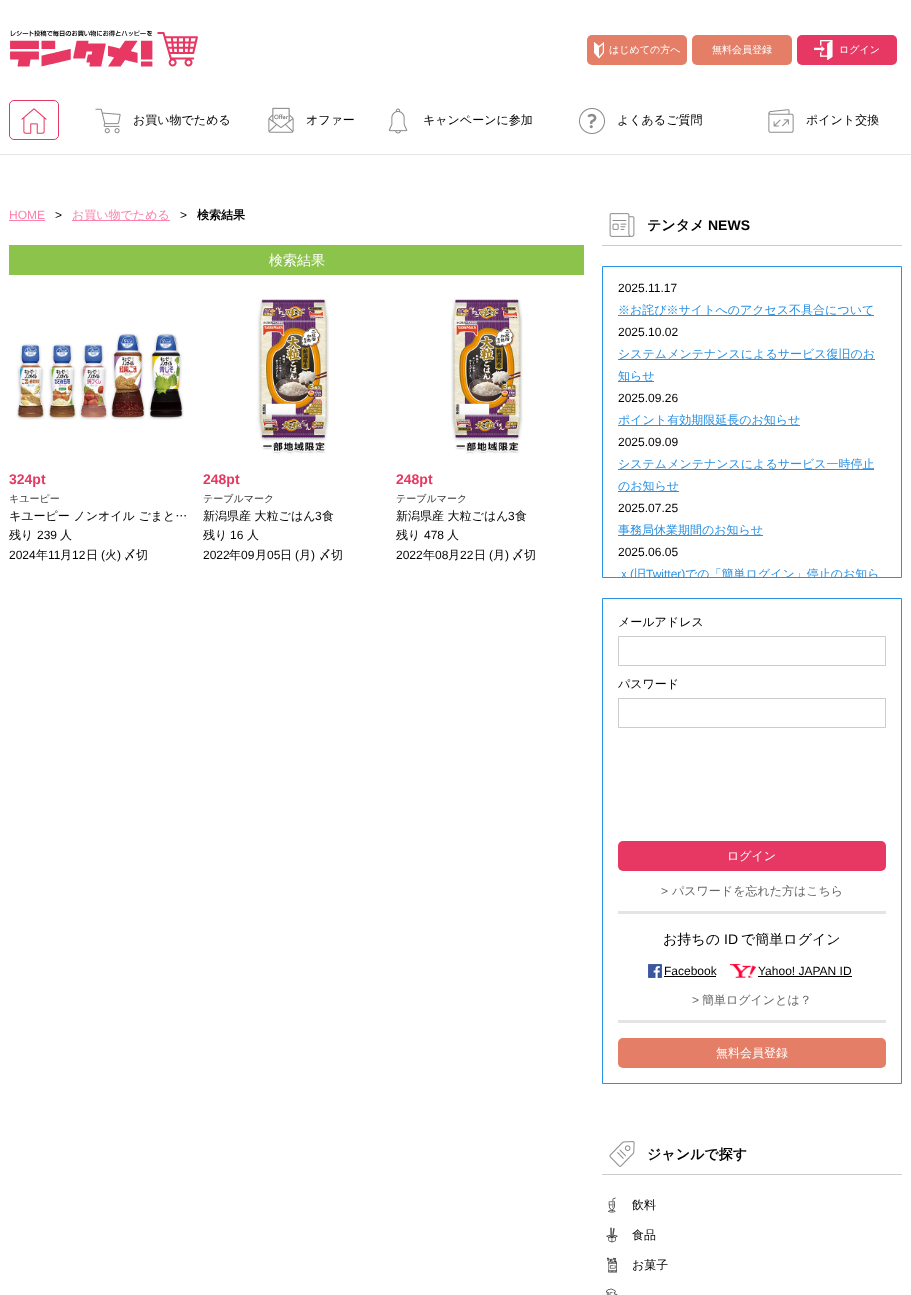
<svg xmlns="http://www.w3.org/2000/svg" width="911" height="1295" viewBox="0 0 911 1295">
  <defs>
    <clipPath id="clip1"><path d="M603 267h298v310H603z"/></clipPath>
  </defs>
  <rect width="100%" height="100%" fill="#fff"/>
  <image x="10" y="30" width="188" height="37" href="img/1.png"/>
  <rect x="587" y="35" width="100" height="30" rx="5" fill="#e47e67"/>
  <image x="594" y="42" width="10" height="17" href="img/2.png"/>
  <rect x="692" y="35" width="100" height="30" rx="5" fill="#e47e67"/>
  <rect x="797" y="35" width="100" height="30" rx="5" fill="#e63862"/>
  <image x="814" y="40" width="19" height="20" href="img/3.png"/>
  <path d="M0 154h911v1H0z" fill="#e6e6e6"/>
  <image x="21" y="108" width="26" height="26" href="img/4.png"/>
  <rect x="9.5" y="100.5" width="49" height="39" rx="4.5" fill="none" stroke="#e63862"/>
  <image x="95" y="108" width="26" height="26" href="img/5.png"/>
  <image x="268" y="107" width="26" height="26" href="img/6.png"/>
  <image x="388" y="108" width="20" height="26" href="img/7.png"/>
  <image x="579" y="108" width="26" height="26" href="img/8.png"/>
  <image x="768" y="109" width="26" height="24" href="img/9.png"/>
  <path d="M9 220h36v1H9z" fill="#ff80ab"/>
  <path d="M72 220h98v1H72z" fill="#ff80ab"/>
  <path d="M9 245h575v30H9z" fill="#8cc34b"/>
  <image x="16" y="333" width="168" height="87" href="img/10.png"/>
  <image x="257" y="299" width="72" height="155" href="img/11.png"/>
  <image x="451" y="299" width="72" height="155" href="img/12.png"/>
  <image x="609" y="213" width="26" height="24" href="img/13.png"/>
  <path d="M602 245h300v1H602z" fill="#ccc"/>
  <path d="M602.5 266.5h299v311H602.5z" fill="none" stroke="#2a90e2"/>
  <path d="M618 315h256v1H618z" fill="#2a90e2"/>
  <path d="M618 359h257v1H618z" fill="#2a90e2"/>
  <path d="M618 381h36v1H618z" fill="#2a90e2"/>
  <path d="M618 425h182v1H618z" fill="#2a90e2"/>
  <path d="M618 469h256v1H618z" fill="#2a90e2"/>
  <path d="M618 491h61v1H618z" fill="#2a90e2"/>
  <path d="M618 535h145v1H618z" fill="#2a90e2"/>
  <path d="M602.5 598.5h299v485H602.5z" fill="none" stroke="#2a90e2"/>
  <path d="M618.5 636.5h267v29H618.5z" fill="none" stroke="#ccc"/>
  <path d="M618.5 698.5h267v29H618.5z" fill="none" stroke="#ccc"/>
  <rect x="618" y="841" width="268" height="30" rx="5" fill="#e63862"/>
  <path d="M618 911h268v3H618z" fill="#e4e4e4"/>
  <path d="M618 1020h268v3H618z" fill="#e4e4e4"/>
  <image x="648" y="964" width="14" height="14" href="img/14.png"/>
  <path d="M664 976h52v1H664z" fill="#000"/>
  <image x="730" y="964" width="26" height="14" href="img/15.png"/>
  <path d="M758 976h94v1H758z" fill="#000"/>
  <rect x="618" y="1038" width="268" height="30" rx="5" fill="#e47e67"/>
  <image x="609" y="1141" width="26" height="26" href="img/16.png"/>
  <path d="M602 1174h300v1H602z" fill="#ccc"/>
  <image x="608" y="1197" width="8" height="16" href="img/17.png"/>
  <image x="606" y="1227" width="12" height="16" href="img/18.png"/>
  <image x="607" y="1257" width="10" height="16" href="img/19.png"/>
  <image x="606" y="1288" width="12" height="7" href="img/20.png"/>
  <g font-family="WenQuanYi Zen Hei" font-size="10" font-weight="500" fill="#fff">
    <text x="609" y="53">はじめての方へ</text>
    <text x="712" y="53">無料会員登録</text>
    <text x="839" y="53">ログイン</text>
  </g>
  <g font-family="WenQuanYi Zen Hei" font-size="12" font-weight="500" fill="#000">
    <text x="133" y="124">お買い物でためる</text>
    <text x="306" y="124">オファー</text>
    <text x="423" y="124">キャンペーンに参加</text>
    <text x="617" y="124">よくあるご質問</text>
    <text x="806" y="124">ポイント交換</text>
  </g>
  <text x="9" y="219" font-family="Liberation Sans" font-size="12" fill="#ff80ab">HOME</text>
  <text x="55" y="219" font-family="Liberation Sans" font-size="12" fill="#000">&gt;</text>
  <text x="72" y="219" font-family="WenQuanYi Zen Hei" font-size="12" font-weight="500" fill="#ff80ab">お買い物でためる</text>
  <text x="180" y="219" font-family="Liberation Sans" font-size="12" fill="#000">&gt;</text>
  <text x="197" y="219" font-family="WenQuanYi Zen Hei" font-size="12" font-weight="bold" fill="#000">検索結果</text>
  <text x="269" y="265" font-family="WenQuanYi Zen Hei" font-size="14" font-weight="500" fill="#fff">検索結果</text>
  <text x="9" y="484" font-family="Liberation Sans" font-size="14" font-weight="bold" fill="#e63862">324pt</text>
  <text x="9" y="502" font-family="WenQuanYi Zen Hei" font-size="10" font-weight="500" fill="#333">キユーピー</text>
  <g font-family="WenQuanYi Zen Hei" font-size="12" font-weight="500" fill="#000">
    <text x="9" y="520">キユーピー ノンオイル ごまと…</text>
    <text x="9" y="539">残り</text>
  </g>
  <text x="37" y="539" font-family="Liberation Sans" font-size="12" fill="#000">239</text>
  <text x="60" y="539" font-family="WenQuanYi Zen Hei" font-size="12" font-weight="500" fill="#000">人</text>
  <text x="9" y="559" font-family="Liberation Sans" font-size="12" fill="#000">2024</text>
  <text x="36" y="559" font-family="WenQuanYi Zen Hei" font-size="12" font-weight="500" fill="#000">年</text>
  <text x="48" y="559" font-family="Liberation Sans" font-size="12" fill="#000">11</text>
  <text x="60" y="559" font-family="WenQuanYi Zen Hei" font-size="12" font-weight="500" fill="#000">月</text>
  <text x="72" y="559" font-family="Liberation Sans" font-size="12" fill="#000">12</text>
  <text x="86" y="559" font-family="WenQuanYi Zen Hei" font-size="12" font-weight="500" fill="#000">日</text>
  <text x="101" y="559" font-family="Liberation Sans" font-size="12" fill="#000">(</text>
  <text x="105" y="559" font-family="WenQuanYi Zen Hei" font-size="12" font-weight="500" fill="#000">火</text>
  <text x="117" y="559" font-family="Liberation Sans" font-size="12" fill="#000">)</text>
  <text x="124" y="559" font-family="WenQuanYi Zen Hei" font-size="12" font-weight="500" fill="#000">〆切</text>
  <text x="203" y="484" font-family="Liberation Sans" font-size="14" font-weight="bold" fill="#e63862">248pt</text>
  <text x="203" y="502" font-family="WenQuanYi Zen Hei" font-size="10" font-weight="500" fill="#333">テーブルマーク</text>
  <text x="203" y="520" font-family="WenQuanYi Zen Hei" font-size="12" font-weight="500" fill="#000">新潟県産 大粒ごはん</text>
  <text x="315" y="520" font-family="Liberation Sans" font-size="12" fill="#000">3</text>
  <g font-family="WenQuanYi Zen Hei" font-size="12" font-weight="500" fill="#000">
    <text x="322" y="520">食</text>
    <text x="203" y="539">残り</text>
  </g>
  <text x="230" y="539" font-family="Liberation Sans" font-size="12" fill="#000">16</text>
  <text x="247" y="539" font-family="WenQuanYi Zen Hei" font-size="12" font-weight="500" fill="#000">人</text>
  <text x="203" y="559" font-family="Liberation Sans" font-size="12" fill="#000">2022</text>
  <text x="229" y="559" font-family="WenQuanYi Zen Hei" font-size="12" font-weight="500" fill="#000">年</text>
  <text x="241" y="559" font-family="Liberation Sans" font-size="12" fill="#000">09</text>
  <text x="255" y="559" font-family="WenQuanYi Zen Hei" font-size="12" font-weight="500" fill="#000">月</text>
  <text x="267" y="559" font-family="Liberation Sans" font-size="12" fill="#000">05</text>
  <text x="280" y="559" font-family="WenQuanYi Zen Hei" font-size="12" font-weight="500" fill="#000">日</text>
  <text x="295" y="559" font-family="Liberation Sans" font-size="12" fill="#000">(</text>
  <text x="299" y="559" font-family="WenQuanYi Zen Hei" font-size="12" font-weight="500" fill="#000">月</text>
  <text x="311" y="559" font-family="Liberation Sans" font-size="12" fill="#000">)</text>
  <text x="319" y="559" font-family="WenQuanYi Zen Hei" font-size="12" font-weight="500" fill="#000">〆切</text>
  <text x="396" y="484" font-family="Liberation Sans" font-size="14" font-weight="bold" fill="#e63862">248pt</text>
  <text x="396" y="502" font-family="WenQuanYi Zen Hei" font-size="10" font-weight="500" fill="#333">テーブルマーク</text>
  <text x="396" y="520" font-family="WenQuanYi Zen Hei" font-size="12" font-weight="500" fill="#000">新潟県産 大粒ごはん</text>
  <text x="508" y="520" font-family="Liberation Sans" font-size="12" fill="#000">3</text>
  <g font-family="WenQuanYi Zen Hei" font-size="12" font-weight="500" fill="#000">
    <text x="515" y="520">食</text>
    <text x="396" y="539">残り</text>
  </g>
  <text x="424" y="539" font-family="Liberation Sans" font-size="12" fill="#000">478</text>
  <text x="447" y="539" font-family="WenQuanYi Zen Hei" font-size="12" font-weight="500" fill="#000">人</text>
  <text x="396" y="559" font-family="Liberation Sans" font-size="12" fill="#000">2022</text>
  <text x="423" y="559" font-family="WenQuanYi Zen Hei" font-size="12" font-weight="500" fill="#000">年</text>
  <text x="435" y="559" font-family="Liberation Sans" font-size="12" fill="#000">08</text>
  <text x="448" y="559" font-family="WenQuanYi Zen Hei" font-size="12" font-weight="500" fill="#000">月</text>
  <text x="460" y="559" font-family="Liberation Sans" font-size="12" fill="#000">22</text>
  <text x="474" y="559" font-family="WenQuanYi Zen Hei" font-size="12" font-weight="500" fill="#000">日</text>
  <text x="489" y="559" font-family="Liberation Sans" font-size="12" fill="#000">(</text>
  <text x="493" y="559" font-family="WenQuanYi Zen Hei" font-size="12" font-weight="500" fill="#000">月</text>
  <text x="505" y="559" font-family="Liberation Sans" font-size="12" fill="#000">)</text>
  <text x="512" y="559" font-family="WenQuanYi Zen Hei" font-size="12" font-weight="500" fill="#000">〆切</text>
  <text x="647" y="230" font-family="WenQuanYi Zen Hei" font-size="14" font-weight="bold" fill="#000">テンタメ</text>
  <text x="708" y="230" font-family="Liberation Sans" font-size="14" font-weight="bold" fill="#000">NEWS</text>
  <text x="618" y="292" font-family="Liberation Sans" font-size="12" fill="#000">2025.11.17</text>
  <text x="618" y="314" font-family="WenQuanYi Zen Hei" font-size="12" font-weight="500" fill="#2a90e2">※お詫び※サイトへのアクセス不具合について</text>
  <text x="618" y="336" font-family="Liberation Sans" font-size="12" fill="#000">2025.10.02</text>
  <g font-family="WenQuanYi Zen Hei" font-size="12" font-weight="500" fill="#2a90e2">
    <text x="618" y="358">システムメンテナンスによるサービス復旧のお</text>
    <text x="618" y="380">知らせ</text>
  </g>
  <text x="618" y="402" font-family="Liberation Sans" font-size="12" fill="#000">2025.09.26</text>
  <text x="618" y="424" font-family="WenQuanYi Zen Hei" font-size="12" font-weight="500" fill="#2a90e2">ポイント有効期限延長のお知らせ</text>
  <text x="618" y="446" font-family="Liberation Sans" font-size="12" fill="#000">2025.09.09</text>
  <g font-family="WenQuanYi Zen Hei" font-size="12" font-weight="500" fill="#2a90e2">
    <text x="618" y="468">システムメンテナンスによるサービス一時停止</text>
    <text x="618" y="490">のお知らせ</text>
  </g>
  <text x="618" y="512" font-family="Liberation Sans" font-size="12" fill="#000">2025.07.25</text>
  <text x="618" y="534" font-family="WenQuanYi Zen Hei" font-size="12" font-weight="500" fill="#2a90e2">事務局休業期間のお知らせ</text>
  <text x="618" y="556" font-family="Liberation Sans" font-size="12" fill="#000">2025.06.05</text>
  <g clip-path="url(#clip1)">
    <text x="618" y="578" font-family="WenQuanYi Zen Hei" font-size="12" font-weight="500" fill="#2a90e2">ｘ</text>
    <text x="630" y="578" font-family="Liberation Sans" font-size="12" fill="#2a90e2">(</text>
    <text x="634" y="578" font-family="WenQuanYi Zen Hei" font-size="12" font-weight="500" fill="#2a90e2">旧</text>
    <text x="646" y="578" font-family="Liberation Sans" font-size="12" fill="#2a90e2">Twitter)</text>
    <text x="685" y="578" font-family="WenQuanYi Zen Hei" font-size="12" font-weight="500" fill="#2a90e2">での「簡単ログイン」停止のお知ら</text>
  </g>
  <g font-family="WenQuanYi Zen Hei" font-size="12" font-weight="500" fill="#000">
    <text x="618" y="626">メールアドレス</text>
    <text x="618" y="688">パスワード</text>
  </g>
  <text x="727" y="860" font-family="WenQuanYi Zen Hei" font-size="12" font-weight="500" fill="#fff">ログイン</text>
  <text x="661" y="895" font-family="Liberation Sans" font-size="12" fill="#666">&gt;</text>
  <text x="672" y="895" font-family="WenQuanYi Zen Hei" font-size="12" font-weight="500" fill="#666">パスワードを忘れた方はこちら</text>
  <text x="663" y="944" font-family="WenQuanYi Zen Hei" font-size="14" font-weight="500" fill="#000">お持ちの</text>
  <text x="724" y="944" font-family="Liberation Sans" font-size="14" fill="#000">ID</text>
  <text x="741" y="944" font-family="WenQuanYi Zen Hei" font-size="14" font-weight="500" fill="#000">で簡単ログイン</text>
  <g font-family="Liberation Sans" font-size="12" fill="#000">
    <text x="664" y="975">Facebook</text>
    <text x="758" y="975">Yahoo! JAPAN ID</text>
  </g>
  <text x="692" y="1004" font-family="Liberation Sans" font-size="12" fill="#666">&gt;</text>
  <text x="702" y="1004" font-family="WenQuanYi Zen Hei" font-size="12" font-weight="500" fill="#666">簡単ログインとは？</text>
  <text x="716" y="1057" font-family="WenQuanYi Zen Hei" font-size="12" font-weight="500" fill="#fff">無料会員登録</text>
  <text x="647" y="1159" font-family="WenQuanYi Zen Hei" font-size="14" font-weight="bold" fill="#000">ジャンルで探す</text>
  <g font-family="WenQuanYi Zen Hei" font-size="12" font-weight="500" fill="#000">
    <text x="632" y="1209">飲料</text>
    <text x="632" y="1239">食品</text>
    <text x="632" y="1269">お菓子</text>
  </g>
</svg>
